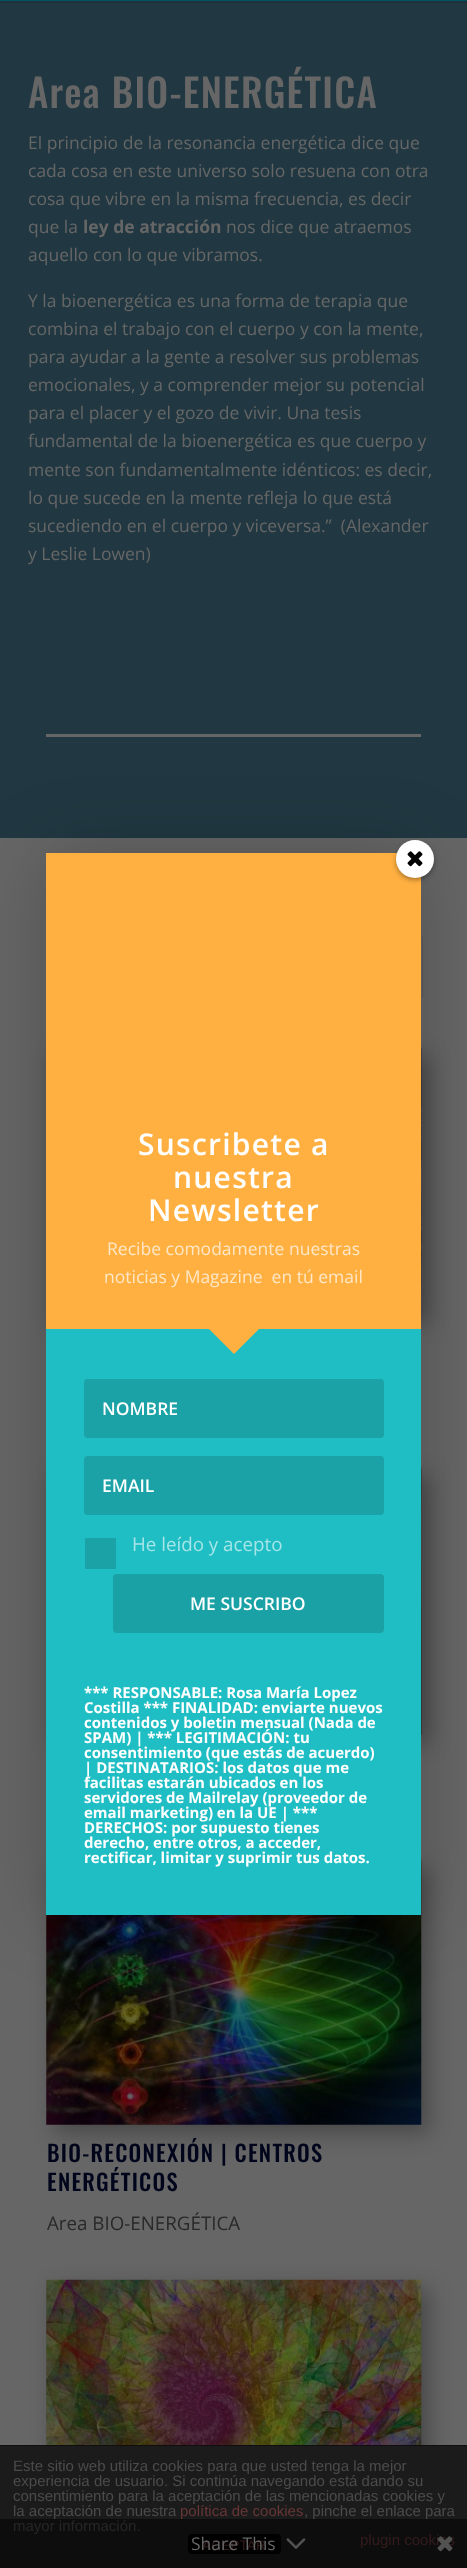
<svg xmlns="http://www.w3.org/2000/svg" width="467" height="2568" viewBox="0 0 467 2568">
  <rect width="100%" height="100%" fill="#666"/>
  <path d="M0 1V3H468V-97V1Z" fill="#1e323c"/>
  <path d="M0 0h467v1H0z" fill="#005460"/>
  <path d="M0 3h467v835H0z" fill="#213842"/>
  <path d="M46 734h375v3H46z" fill="#666"/>
  <path d="M234.5 936.5H422.5V995C422.5 997 421 998.5 419 998.5H234.5Z" fill="none" stroke="#5a5a5a"/>
  <path d="M54 1056h375v267H54z" fill="#0000004d" filter="blur(11px)"/>
  <image x="421" y="1048" width="1" height="267" href="img/1.png"/>
  <path d="M54 1476h375v267H54z" fill="#0000004d" filter="blur(11px)"/>
  <image x="421" y="1468" width="1" height="267" href="img/2.png"/>
  <path d="M54 1868h375v265H54z" fill="#0000004d" filter="blur(11px)"/>
  <image x="46" y="1859" width="376" height="266" href="img/3.png"/>
  <path d="M54 2288h375v266H54z" fill="#0000004d" filter="blur(11px)"/>
  <image x="46" y="2279" width="376" height="166" href="img/4.png"/>
  <path d="M46 853h375v1062H46z" fill="#00000033" filter="blur(37.5px)"/>
  <path d="M46 853h375v476H46z" fill="#ffb040"/>
  <rect x="396" y="843" width="38" height="37" rx="18.5" fill="#00000057" filter="blur(2.5px)"/>
  <circle cx="415" cy="859" r="19" fill="#fff"/>
  <image x="407" y="851" width="16" height="16" href="img/5.png"/>
  <path d="M46 1329h375v586H46z" fill="#1fbec4"/>
  <path d="M209 1329H259L234 1354Z" fill="#ffb040"/>
  <rect x="84" y="1379" width="300" height="59" rx="4" fill="#1aa2a7"/>
  <rect x="84" y="1456" width="300" height="59" rx="4" fill="#1aa2a7"/>
  <path d="M85 1538h31v31H85z" fill="#1aa2a7"/>
  <rect x="113" y="1574" width="271" height="59" rx="4" fill="#00000026"/>
  <path d="M0 2446h467v122H0z" fill="#1b1b1b"/>
  <path d="M0 2445h467v1H0z" fill="#0e0e0e"/>
  <rect x="188" y="2534" width="93" height="20" rx="4" fill="#000"/>
  <text x="28" y="108" font-family="Oswald" font-size="38.75" font-weight="500" letter-spacing="1.25" fill="#666">Area BIO-ENERGÉTICA</text>
  <g font-family="Open Sans" font-size="17.5" fill="#666">
    <text x="28" y="149">El principio de la resonancia energética dice que</text>
    <text x="28" y="177">cada cosa en este universo solo resuena con otra</text>
    <text x="28" y="205">cosa que vibre en la misma frecuencia, es decir</text>
    <text x="28" y="233">que la</text>
  </g>
  <text x="83" y="233" font-family="Open Sans" font-size="17.5" font-weight="bold" fill="#666">ley de atracción</text>
  <g font-family="Open Sans" font-size="17.5" fill="#666">
    <text x="226" y="233">nos dice que atraemos</text>
    <text x="28" y="261">aquello con lo que vibramos.</text>
    <text x="28" y="307">Y la bioenergética es una forma de terapia que</text>
    <text x="28" y="335">combina el trabajo con el cuerpo y con la mente,</text>
    <text x="28" y="363">para ayudar a la gente a resolver sus problemas</text>
    <text x="28" y="391">emocionales, y a comprender mejor su potencial</text>
    <text x="28" y="419">para el placer y el gozo de vivir. Una tesis</text>
    <text x="28" y="447">fundamental de la bioenergética es que cuerpo y</text>
    <text x="28" y="476">mente son fundamentalmente idénticos: es decir,</text>
    <text x="28" y="504">lo que sucede en la mente refleja lo que está</text>
    <text x="28" y="532" xml:space="preserve">sucediendo en el cuerpo y viceversa.”  (Alexander</text>
    <text x="28" y="560">y Leslie Lowen)</text>
  </g>
  <g font-family="Oswald" font-size="22.5" font-weight="500" letter-spacing="1.25" fill="#00051b">
    <text x="47" y="2162">BIO-RECONEXIÓN | CENTROS</text>
    <text x="47" y="2191">ENERGÉTICOS</text>
  </g>
  <text x="47" y="2230" font-family="Open Sans" font-size="18.75" fill="#292929">Area BIO-ENERGÉTICA</text>
  <g font-family="Open Sans" font-size="30" font-weight="600" letter-spacing="1.25" fill="#fff">
    <text x="138" y="1155">Suscribete a</text>
    <text x="173" y="1188">nuestra</text>
    <text x="148" y="1221">Newsletter</text>
  </g>
  <g font-family="Open Sans" font-size="17.5" fill="#ffe7c6">
    <text x="107" y="1255">Recibe comodamente nuestras</text>
    <text x="104" y="1283" xml:space="preserve">noticias y Magazine  en tú email</text>
  </g>
  <g font-family="Open Sans" font-size="17.5" font-weight="600" fill="#fff">
    <text x="102" y="1415">NOMBRE</text>
    <text x="102" y="1492">EMAIL</text>
  </g>
  <text x="132" y="1551" font-family="Open Sans" font-size="18.75" fill="#a5e5e7">He leído y acepto</text>
  <text x="190" y="1610" font-family="Open Sans" font-size="17.5" font-weight="600" fill="#fff">ME SUSCRIBO</text>
  <g font-family="Open Sans" font-size="15" font-weight="bold" fill="#fff">
    <text x="84" y="1698">*** RESPONSABLE: Rosa María Lopez</text>
    <text x="84" y="1713">Costilla *** FINALIDAD: enviarte nuevos</text>
    <text x="84" y="1728">contenidos y boletin mensual (Nada de</text>
    <text x="84" y="1743">SPAM) | *** LEGITIMACIÓN: tu</text>
    <text x="84" y="1758">consentimiento (que estás de acuerdo)</text>
    <text x="84" y="1773">| DESTINATARIOS: los datos que me</text>
    <text x="84" y="1788">facilitas estarán ubicados en los</text>
    <text x="84" y="1803">servidores de Mailrelay (proveedor de</text>
    <text x="84" y="1818">email marketing) en la UE | ***</text>
    <text x="84" y="1833">DERECHOS: por supuesto tienes</text>
    <text x="84" y="1848">derecho, entre otros, a acceder,</text>
    <text x="84" y="1863">rectificar, limitar y suprimir tus datos.</text>
  </g>
  <g font-family="Liberation Sans" font-size="15" fill="#4b4b4b">
    <text x="13" y="2471">Este sitio web utiliza cookies para que usted tenga la mejor</text>
    <text x="13" y="2486">experiencia de usuario. Si continúa navegando está dando su</text>
    <text x="13" y="2501">consentimiento para la aceptación de las mencionadas cookies y</text>
    <text x="13" y="2516">la aceptación de nuestra</text>
  </g>
  <text x="180" y="2516" font-family="Liberation Sans" font-size="15" fill="#663636">política de cookies</text>
  <g font-family="Liberation Sans" font-size="15" fill="#4b4b4b">
    <text x="304" y="2516">, pinche el enlace para</text>
    <text x="13" y="2531">mayor información.</text>
  </g>
  <text x="360" y="2545" font-family="Liberation Sans" font-size="15" fill="#663636">plugin cookies</text>
  <text x="202" y="2550" font-family="Liberation Sans" font-size="13.75" fill="#663636">ACEPTAR</text>
  <path d="M0 2519h467v49H0z" fill="#00000080"/>
  <text x="191" y="2550" font-family="Open Sans" font-size="17.5" fill="#666">Share This</text>
  <image x="286" y="2538" width="20" height="11" href="img/6.png"/>
  <image x="437" y="2536" width="16" height="16" href="img/7.png"/>
</svg>
